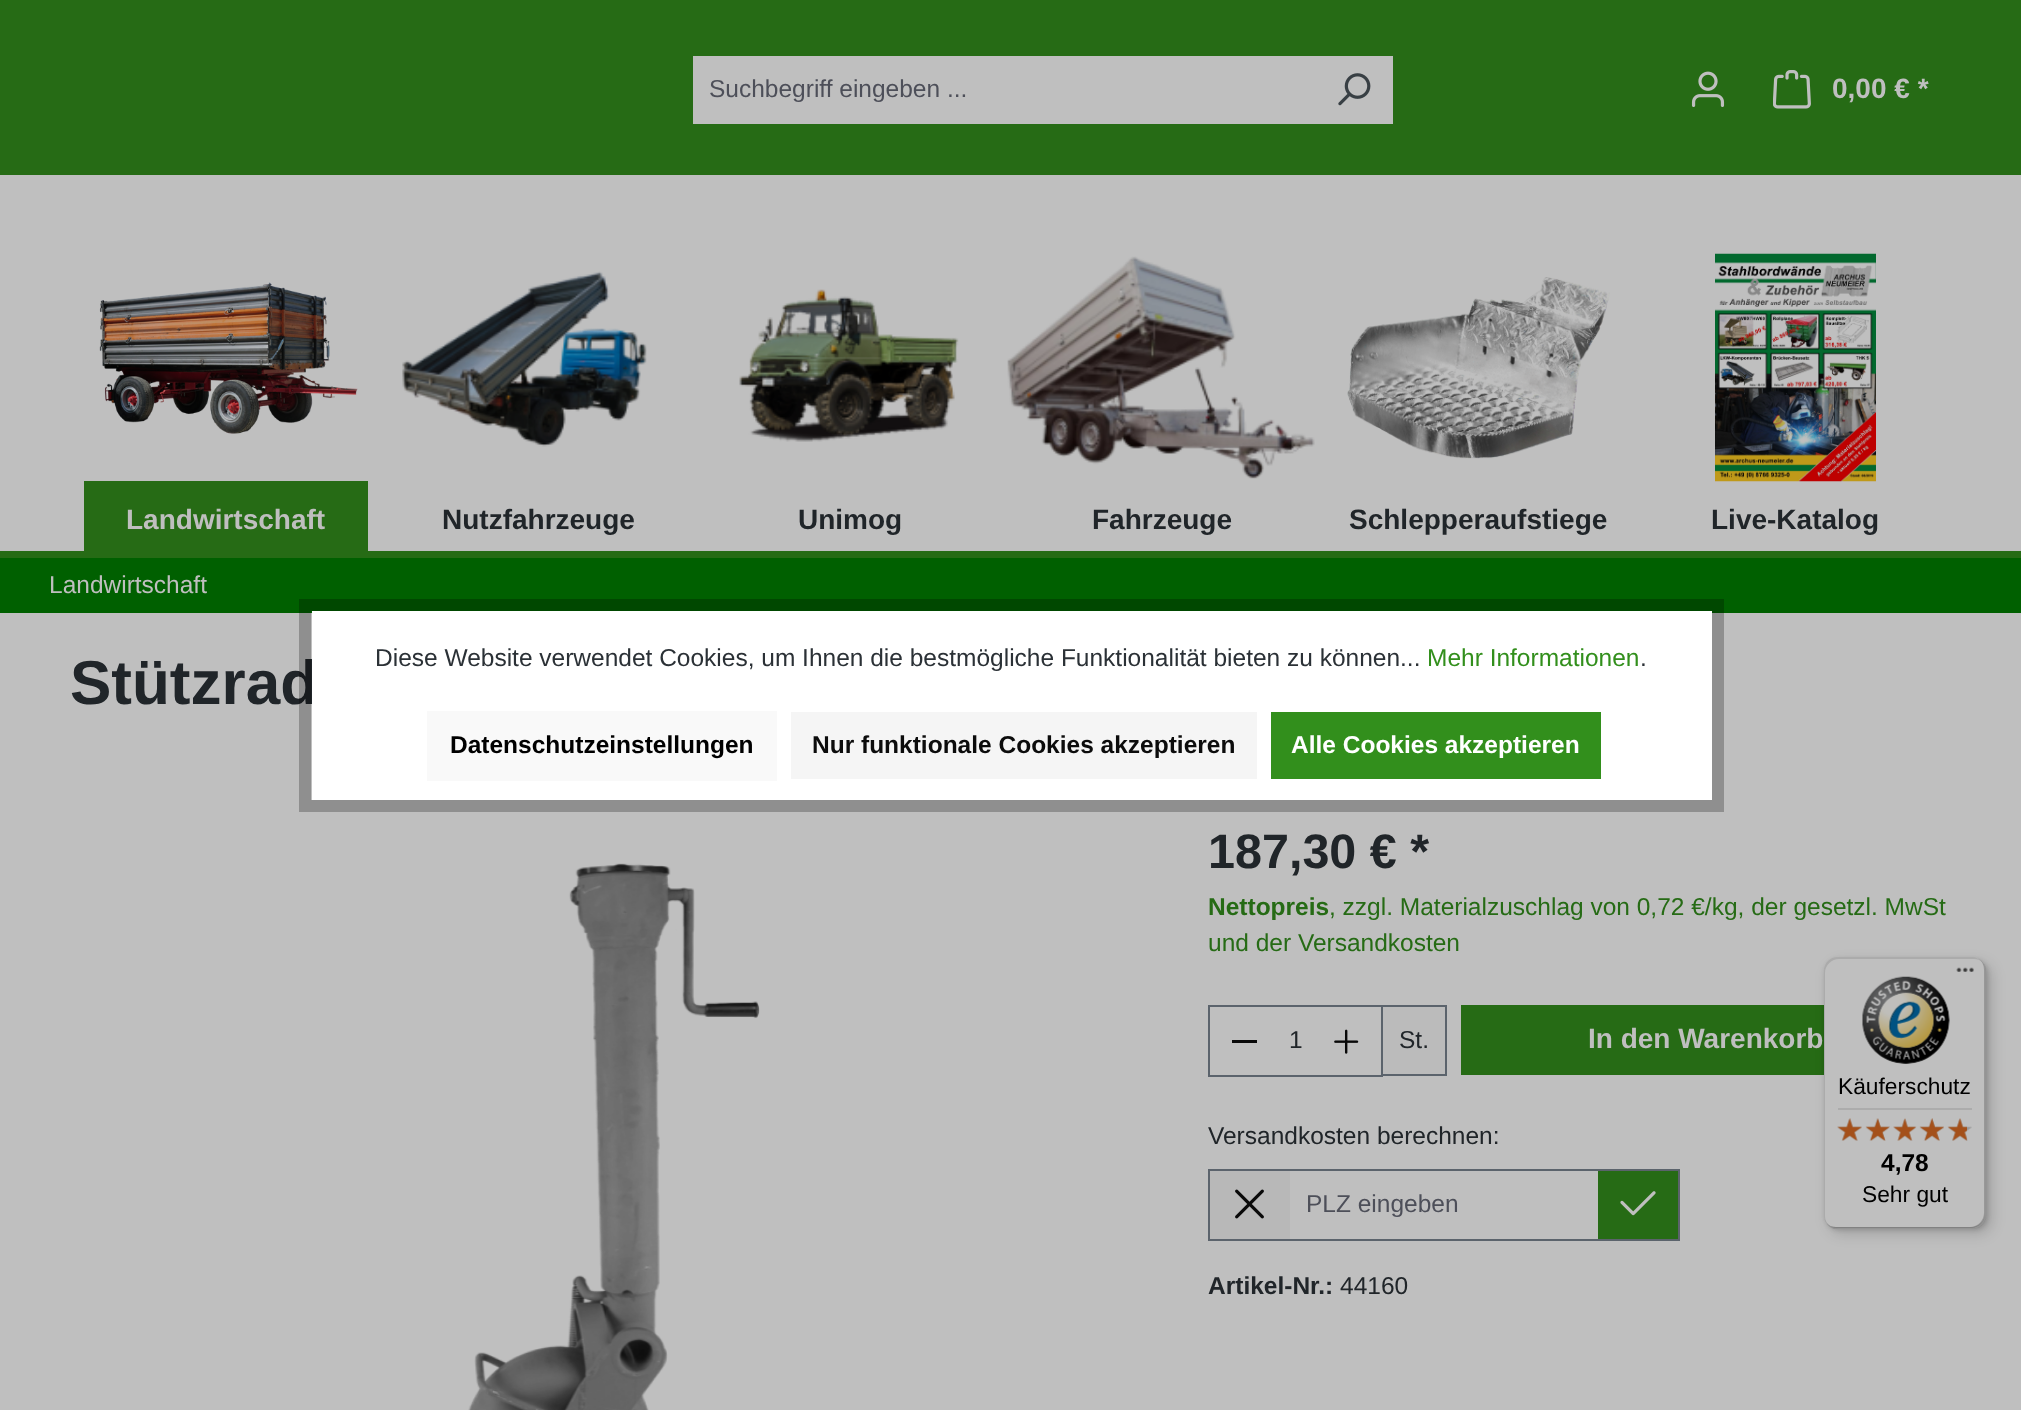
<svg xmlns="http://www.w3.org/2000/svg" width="2021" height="1410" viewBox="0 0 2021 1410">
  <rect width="100%" height="100%" fill="#bfbfbf"/>
  <path d="M0 0h2021v175H0z" fill="#266b15"/>
  <path d="M693 56h700v68H693z" fill="#bfbfbf"/>
  <image x="1338" y="73" width="33" height="33" href="img/1.png"/>
  <image x="1691" y="71" width="34" height="36" href="img/2.png"/>
  <image x="1773" y="70" width="38" height="39" href="img/3.png"/>
  <path d="M0 551h2021v7H0z" fill="#266b15"/>
  <image x="99" y="282" width="259" height="152" href="img/4.png"/>
  <path d="M84 481h284v70H84z" fill="#266b15"/>
  <image x="402" y="271" width="245" height="176" href="img/5.png"/>
  <image x="739" y="289" width="220" height="153" href="img/6.png"/>
  <image x="1007" y="256" width="308" height="223" href="img/7.png"/>
  <image x="1347" y="277" width="263" height="182" href="img/8.png"/>
  <image x="1715" y="253" width="161" height="229" href="img/9.png"/>
  <path d="M0 558h2021v55H0z" fill="#006000"/>
  <image x="468" y="863" width="292" height="547" href="img/10.png"/>
  <path d="M1382 1006h64v69H1382z" fill="#bbb" stroke="#5b636c" stroke-width="2"/>
  <path d="M1208 1005h175v2H1208z" fill="#5b636c"/>
  <path d="M1208 1075h175v2H1208z" fill="#5b636c"/>
  <path d="M1208 1005h2v71H1208z" fill="#5b636c"/>
  <path d="M1232 1040h25v3H1232z" fill="#090909"/>
  <image x="1334" y="1029" width="25" height="25" href="img/11.png"/>
  <path d="M1461 1005h363v70H1461z" fill="#266b15"/>
  <path d="M1289 1170h310v70H1289z" fill="none" stroke="#5b636c" stroke-width="2"/>
  <path d="M1210 1171h80v68H1210z" fill="#b8b8b8"/>
  <path d="M1208 1169h82v2H1208z" fill="#5b636c"/>
  <path d="M1208 1239h82v2H1208z" fill="#5b636c"/>
  <path d="M1208 1169h2v72H1208z" fill="#5b636c"/>
  <image x="1235" y="1189" width="29" height="30" href="img/12.png"/>
  <path d="M1598 1171h80v68H1598z" fill="#266b15"/>
  <path d="M1598 1169h82v2H1598z" fill="#5b636c"/>
  <path d="M1678 1169h2v72H1678z" fill="#5b636c"/>
  <path d="M1598 1239h82v2H1598z" fill="#5b636c"/>
  <image x="1620" y="1191" width="36" height="25" href="img/13.png"/>
  <rect x="1829" y="963" width="163" height="271" rx="14" fill="#00000026" filter="blur(7px)"/>
  <rect x="1825" y="959" width="163" height="271" rx="14" fill="#00000026" filter="blur(2px)"/>
  <rect x="1824" y="957" width="162" height="272" rx="14" fill="#bfbfbf"/>
  <path d="M1839 959H1974C1977 959 1980 960 1982 962C1980 959 1976 957 1972 957H1838C1830 957 1824 963 1824 971V1215C1824 1220 1826 1224 1830 1226C1827 1224 1825 1220 1825 1216V973C1825 965 1832 959 1839 959Z" fill="#0000001a"/>
  <path d="M1827 1223C1829 1227 1833 1229 1838 1229H1972C1980 1229 1986 1223 1986 1215V971C1986 965 1983 961 1978 958C1982 961 1984 965 1984 970V1213C1984 1220 1978 1227 1970 1227H1836C1832 1227 1829 1226 1827 1223Z" fill="#00000033"/>
  <path d="M1827 1223C1829 1227 1833 1229 1838 1229H1972C1980 1229 1986 1223 1986 1215V971C1986 967 1985 964 1982 962C1984 964 1985 967 1985 970V1213C1985 1221 1979 1227 1971 1227H1836C1833 1227 1829 1226 1827 1223Z" fill="#26262633"/>
  <path d="M1827 1223C1829 1227 1833 1229 1838 1229H1972C1980 1229 1986 1223 1986 1215V971C1986 966 1984 962 1981 960C1983 963 1985 966 1985 970V1214C1985 1221 1979 1228 1971 1228H1837C1833 1228 1829 1226 1827 1223Z" fill="#bfbfbf4d"/>
  <image x="1956" y="967" width="18" height="5" href="img/14.png"/>
  <image x="1862" y="976" width="88" height="88" href="img/15.png"/>
  <path d="M1838 1108h134v2H1838z" fill="#acacac"/>
  <image x="1837" y="1118" width="25" height="23" href="img/16.png"/>
  <image x="1866" y="1118" width="24" height="23" href="img/17.png"/>
  <image x="1893" y="1119" width="23" height="22" href="img/18.png"/>
  <image x="1920" y="1118" width="24" height="23" href="img/19.png"/>
  <image x="1948" y="1118" width="24" height="23" href="img/20.png"/>
  <image x="1837" y="1118" width="25" height="23" href="img/21.png"/>
  <image x="1865" y="1118" width="25" height="23" href="img/22.png"/>
  <image x="1893" y="1118" width="24" height="23" href="img/23.png"/>
  <image x="1919" y="1118" width="25" height="23" href="img/24.png"/>
  <image x="1947" y="1118" width="20" height="23" href="img/25.png"/>
  <text x="709" y="97" font-family="Liberation Sans" font-size="24.5" fill="#4d4f59">Suchbegriff eingeben ...</text>
  <g font-family="Liberation Sans" font-size="28" font-weight="bold" fill="#bfbfbf">
    <text x="1832" y="98">0,00 € *</text>
    <text x="126" y="529">Landwirtschaft</text>
  </g>
  <g font-family="Liberation Sans" font-size="28" font-weight="bold" fill="#202529">
    <text x="442" y="529">Nutzfahrzeuge</text>
    <text x="798" y="529">Unimog</text>
    <text x="1092" y="529">Fahrzeuge</text>
    <text x="1349" y="529">Schlepperaufstiege</text>
    <text x="1711" y="529">Live-Katalog</text>
  </g>
  <text x="49" y="593" font-family="Liberation Sans" font-size="24.5" fill="#bfbfbf">Landwirtschaft</text>
  <text x="70" y="704" font-family="Liberation Sans" font-size="62" font-weight="bold" fill="#202529">Stützrad</text>
  <text x="1208" y="868" font-family="Liberation Sans" font-size="48.5" font-weight="bold" fill="#202529">187,30 € *</text>
  <text x="1208" y="915" font-family="Liberation Sans" font-size="24.5" font-weight="bold" fill="#266b15">Nettopreis</text>
  <g font-family="Liberation Sans" font-size="24.5" fill="#266b15">
    <text x="1329" y="915">, zzgl. Materialzuschlag von 0,72 €/kg, der gesetzl. MwSt</text>
    <text x="1208" y="951">und der Versandkosten</text>
  </g>
  <g font-family="Liberation Sans" font-size="24.5" fill="#202529">
    <text x="1289" y="1048">1</text>
    <text x="1399" y="1048">St.</text>
  </g>
  <text x="1588" y="1048" font-family="Liberation Sans" font-size="28" font-weight="bold" fill="#bfbfbf">In den Warenkorb</text>
  <text x="1208" y="1144" font-family="Liberation Sans" font-size="24.5" fill="#202529">Versandkosten berechnen:</text>
  <text x="1306" y="1212" font-family="Liberation Sans" font-size="24.5" fill="#4d4f59">PLZ eingeben</text>
  <text x="1208" y="1294" font-family="Liberation Sans" font-size="24.5" font-weight="bold" fill="#202529">Artikel-Nr.:</text>
  <text x="1340" y="1294" font-family="Liberation Sans" font-size="24.5" fill="#202529">44160</text>
  <path d="M305 605h1413v201H305z" fill="none" stroke="#00000040" stroke-width="12"/>
  <path d="M312 611h1400v189H312z" fill="#fff"/>
  <text x="375" y="666" font-family="Liberation Sans" font-size="24.5" fill="#2b3136">Diese Website verwendet Cookies, um Ihnen die bestmögliche Funktionalität bieten zu können...</text>
  <text x="1427" y="666" font-family="Liberation Sans" font-size="24.5" fill="#328f1c">Mehr Informationen</text>
  <text x="1640" y="666" font-family="Liberation Sans" font-size="24.5" fill="#2b3136">.</text>
  <path d="M427 711h350v70H427z" fill="#f9f9f9"/>
  <text x="450" y="753" font-family="Liberation Sans" font-size="24.5" font-weight="bold" fill="#000">Datenschutzeinstellungen</text>
  <path d="M791 712h466v67H791z" fill="#f5f5f5"/>
  <text x="812" y="753" font-family="Liberation Sans" font-size="24.5" font-weight="bold" fill="#0c0c0c">Nur funktionale Cookies akzeptieren</text>
  <path d="M1271 712h330v67H1271z" fill="#328f1c"/>
  <text x="1291" y="753" font-family="Liberation Sans" font-size="24.5" font-weight="bold" fill="#fff">Alle Cookies akzeptieren</text>
  <text x="1838" y="1094" font-family="Liberation Sans" font-size="22.75" fill="#000">Käuferschutz</text>
  <text x="1881" y="1171" font-family="Liberation Sans" font-size="24.5" font-weight="bold" fill="#000">4,78</text>
  <text x="1862" y="1202" font-family="Liberation Sans" font-size="22.75" fill="#000">Sehr gut</text>
</svg>
